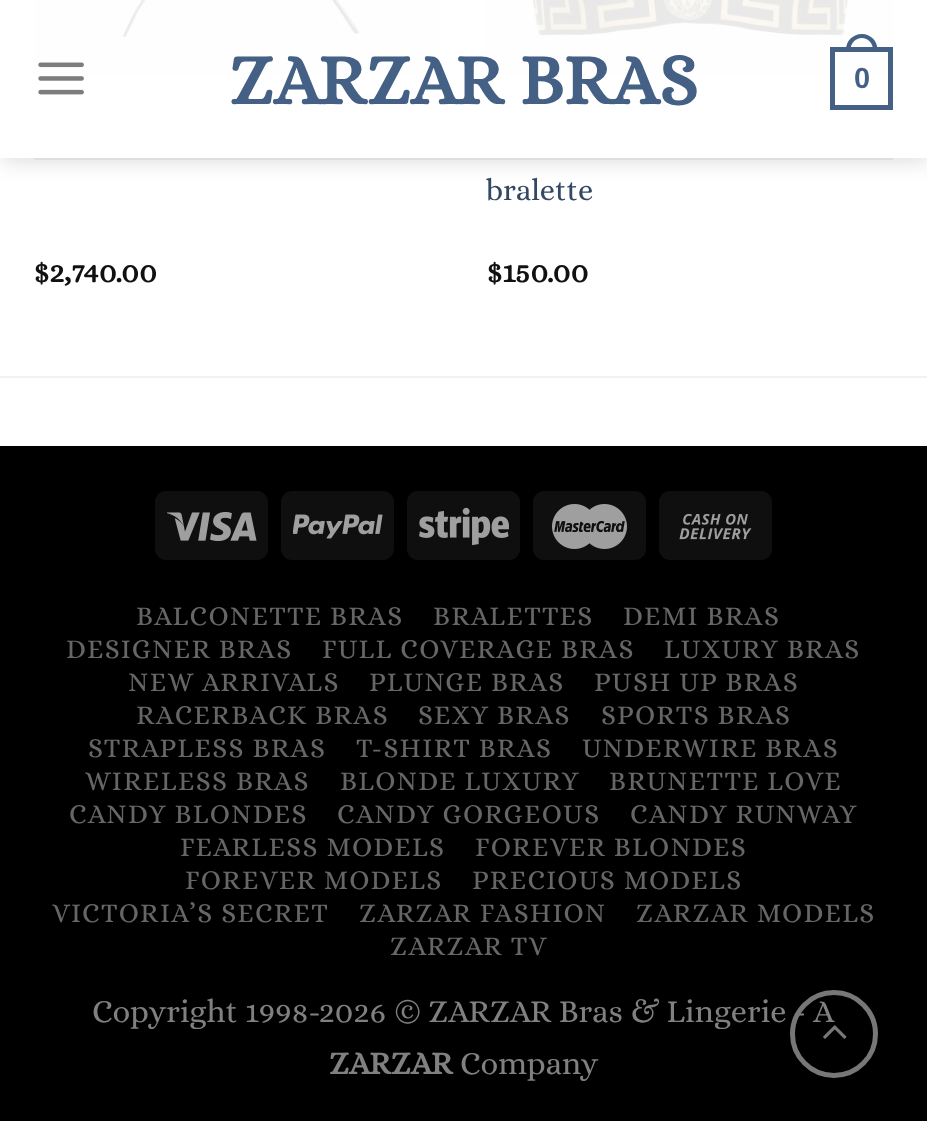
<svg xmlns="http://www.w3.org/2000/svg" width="927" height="1121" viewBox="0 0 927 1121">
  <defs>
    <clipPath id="clip1"><path d="M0 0H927V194H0ZM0 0H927V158H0Z" clip-rule="evenodd"/></clipPath>
  </defs>
  <rect width="100%" height="100%" fill="#fff"/>
  <image x="34" y="0" width="407" height="74" href="img/2.png"/>
  <image x="486" y="0" width="407" height="74" href="img/3.png"/>
  <g clip-path="url(#clip1)">
    <path d="M2 2h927v158H2z" fill="#00000026" filter="blur(11px)"/>
  </g>
  <path d="M0 0h927v158H0z" fill="#ffffffe6"/>
  <image x="38" y="62" width="46" height="33" href="img/1.png"/>
  <path d="M832.5 49.5h58v58H832.5z" fill="none" stroke="#446084" stroke-width="5"/>
  <path d="M862 34C870.5 34 877.5 41 877.5 49.5V52H846V49.5C846 41 853 34 862 34ZM862 38C868 38 873 43.5 873 49.5V52H850.5V49.5C850.5 43.5 855.5 38 862 38Z" fill="#446084" fill-rule="evenodd"/>
  <path d="M34 158h859v2H34z" fill="#7777771a"/>
  <path d="M0 376h927v2H0z" fill="#f2f2f2"/>
  <path d="M0 446h927v675H0z" fill="#000"/>
  <rect x="155" y="491" width="113" height="69" rx="11" fill="#0f0f0f"/>
  <image x="167" y="512" width="90" height="29" href="img/4.png"/>
  <rect x="281" y="491" width="113" height="69" rx="11" fill="#0f0f0f"/>
  <image x="293" y="514" width="90" height="25" href="img/5.png"/>
  <rect x="407" y="491" width="113" height="69" rx="11" fill="#0f0f0f"/>
  <image x="419" y="507" width="90" height="39" href="img/6.png"/>
  <rect x="533" y="491" width="113" height="69" rx="11" fill="#0f0f0f"/>
  <image x="552" y="504" width="75" height="45" href="img/7.png"/>
  <rect x="659" y="491" width="113" height="69" rx="11" fill="#0f0f0f"/>
  <image x="679" y="513" width="73" height="27" href="img/8.png"/>
  <text x="229" y="104" font-family="Alice" font-size="72" font-weight="bold" fill="#446084">ZARZAR BRAS</text>
  <text x="854" y="88" font-family="Liberation Sans" font-size="29" font-weight="bold" fill="#446084">0</text>
  <text x="33" y="282" font-family="Alice" font-size="30.5" font-weight="bold" fill="#111">$2,740.00</text>
  <text x="486" y="200" font-family="Alice" font-size="30.5" fill="#334862">bralette</text>
  <text x="486" y="282" font-family="Alice" font-size="30.5" font-weight="bold" fill="#111">$150.00</text>
  <g font-family="Alice" font-size="27.5" letter-spacing="1.4" fill="#666">
    <text x="136" y="625">BALCONETTE BRAS</text>
    <text x="433" y="625">BRALETTES</text>
    <text x="623" y="625">DEMI BRAS</text>
    <text x="66" y="658">DESIGNER BRAS</text>
    <text x="322" y="658">FULL COVERAGE BRAS</text>
    <text x="664" y="658">LUXURY BRAS</text>
    <text x="128" y="691">NEW ARRIVALS</text>
    <text x="369" y="691">PLUNGE BRAS</text>
    <text x="594" y="691">PUSH UP BRAS</text>
    <text x="136" y="724">RACERBACK BRAS</text>
    <text x="418" y="724">SEXY BRAS</text>
    <text x="601" y="724">SPORTS BRAS</text>
    <text x="88" y="757">STRAPLESS BRAS</text>
    <text x="356" y="757">T-SHIRT BRAS</text>
    <text x="582" y="757">UNDERWIRE BRAS</text>
    <text x="85" y="790">WIRELESS BRAS</text>
    <text x="340" y="790">BLONDE LUXURY</text>
    <text x="609" y="790">BRUNETTE LOVE</text>
    <text x="69" y="823">CANDY BLONDES</text>
    <text x="337" y="823">CANDY GORGEOUS</text>
    <text x="630" y="823">CANDY RUNWAY</text>
    <text x="180" y="856">FEARLESS MODELS</text>
    <text x="475" y="856">FOREVER BLONDES</text>
    <text x="185" y="889">FOREVER MODELS</text>
    <text x="472" y="889">PRECIOUS MODELS</text>
    <text x="52" y="922">VICTORIA’S SECRET</text>
    <text x="359" y="922">ZARZAR FASHION</text>
    <text x="636" y="922">ZARZAR MODELS</text>
    <text x="390" y="955">ZARZAR TV</text>
  </g>
  <text x="92" y="1022" font-family="Alice" font-size="32.4" fill="#808080">Copyright 1998-2026 © ZARZAR Bras &amp; Lingerie - A</text>
  <text x="329" y="1074" font-family="Alice" font-size="32.4" font-weight="bold" fill="#808080">ZARZAR</text>
  <text x="460" y="1074" font-family="Alice" font-size="32.4" fill="#808080">Company</text>
  <circle cx="834" cy="1034" r="41.5" fill="none" stroke="#777" stroke-width="5"/>
  <image x="823" y="1025" width="24" height="14" href="img/9.png"/>
</svg>
